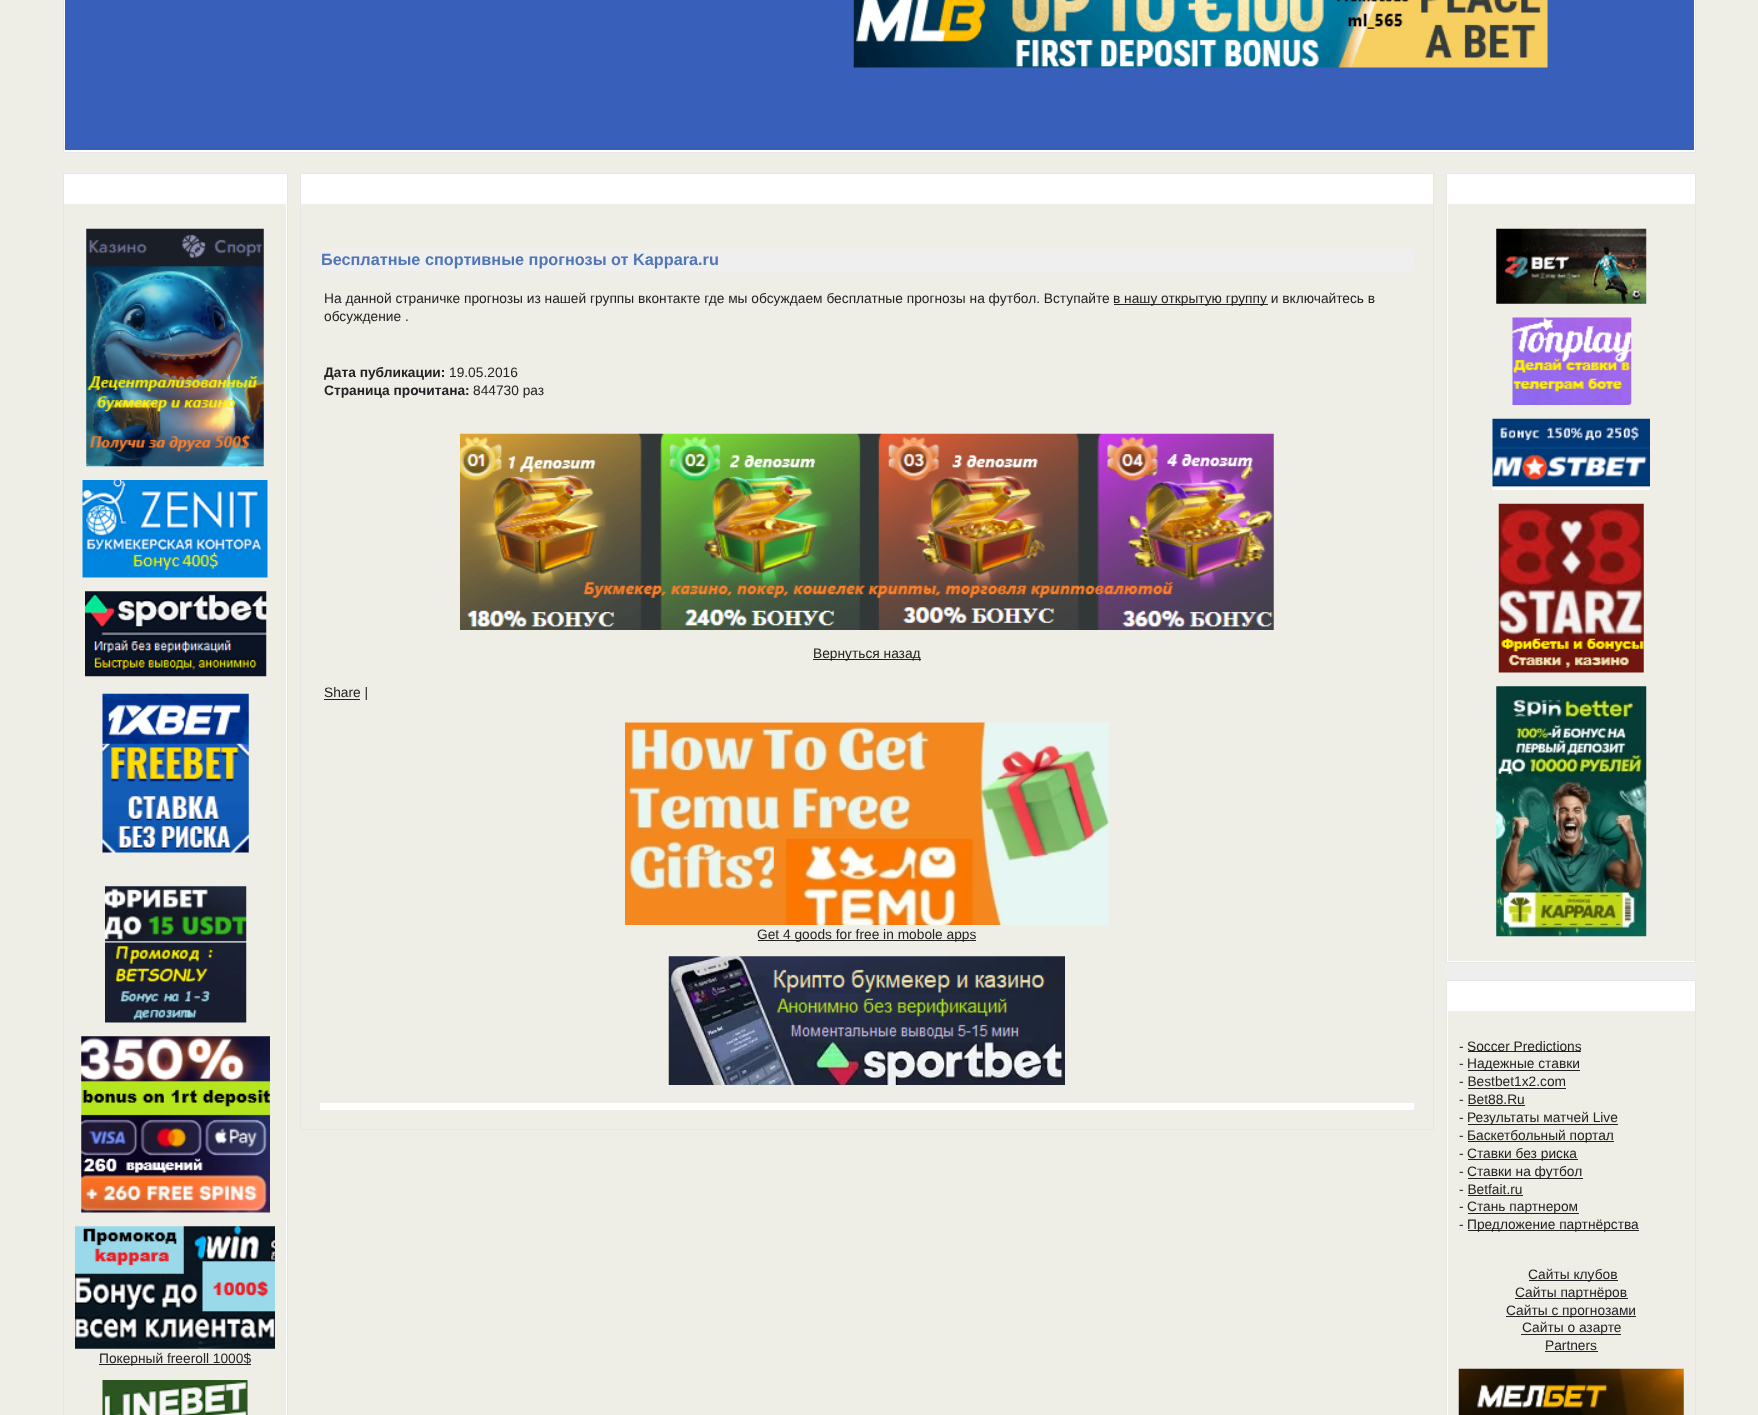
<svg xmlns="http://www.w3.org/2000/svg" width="1758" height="1415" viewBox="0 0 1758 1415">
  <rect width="100%" height="100%" fill="#eeeee6"/>
  <path d="M64 151h1631v1H64z" fill="#fff"/>
  <path d="M63.5 -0.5h1632v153H63.5z" fill="none" stroke="#e6e6e6"/>
  <path d="M64.5 -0.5h1630v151H64.5z" fill="#3860bb" stroke="#fff"/>
  <image x="853" y="0" width="695" height="68" href="img/1.png"/>
  <path d="M301 174h1132v30H301z" fill="#fff"/>
  <path d="M300.5 173.5h1133v956H300.5z" fill="none" stroke="#e6e6e6"/>
  <path d="M321 249h1092v22H321z" fill="#efefef"/>
  <path d="M1114 304h154v1H1114z" fill="#222"/>
  <image x="460" y="433" width="814" height="197" href="img/2.png"/>
  <path d="M813 659h108v1H813z" fill="#222"/>
  <path d="M324 699h36v1H324z" fill="#222"/>
  <image x="625" y="722" width="484" height="203" href="img/3.png"/>
  <path d="M758 940h218v1H758z" fill="#222"/>
  <image x="668" y="956" width="397" height="129" href="img/4.png"/>
  <path d="M320 1103h1094v7H320z" fill="#fff"/>
  <path d="M1446 171h250v809H1446z" fill="#eee"/>
  <path d="M1446.5 173.5h249v789H1446.5z" fill="#fff" stroke="#e6e6e6"/>
  <path d="M1448 204h247v757H1448z" fill="#eeeee6"/>
  <image x="1496" y="228" width="151" height="76" href="img/5.png"/>
  <image x="1512" y="317" width="120" height="88" href="img/6.png"/>
  <image x="1492" y="418" width="158" height="72" href="img/7.png"/>
  <image x="1498" y="503" width="146" height="170" href="img/8.png"/>
  <image x="1496" y="686" width="151" height="251" href="img/9.png"/>
  <path d="M1446.5 980.5h249v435H1446.5z" fill="#fff" stroke="#e6e6e6"/>
  <path d="M1448 1011h247v404H1448z" fill="#eeeee6"/>
  <path d="M1468 1051h113v1H1468z" fill="#222"/>
  <path d="M1468 1070h112v1H1468z" fill="#222"/>
  <path d="M1468 1088h98v1H1468z" fill="#222"/>
  <path d="M1468 1105h57v1H1468z" fill="#222"/>
  <path d="M1468 1124h150v1H1468z" fill="#222"/>
  <path d="M1468 1141h146v1H1468z" fill="#222"/>
  <path d="M1468 1159h110v1H1468z" fill="#222"/>
  <path d="M1468 1178h115v1H1468z" fill="#222"/>
  <path d="M1468 1195h55v1H1468z" fill="#222"/>
  <path d="M1468 1213h111v1H1468z" fill="#222"/>
  <path d="M1468 1230h171v1H1468z" fill="#222"/>
  <path d="M1529 1280h89v1H1529z" fill="#222"/>
  <path d="M1515 1298h113v1H1515z" fill="#222"/>
  <path d="M1506 1316h130v1H1506z" fill="#222"/>
  <path d="M1521 1334h100v1H1521z" fill="#222"/>
  <path d="M1545 1351h53v1H1545z" fill="#222"/>
  <image x="1458" y="1368" width="226" height="47" href="img/10.png"/>
  <path d="M63 171h225v2H63z" fill="#eee"/>
  <path d="M63.5 173.5h224v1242H63.5z" fill="#fff" stroke="#e6e6e6"/>
  <path d="M64 204h222v1211H64z" fill="#eeeee6"/>
  <image x="86" y="228" width="178" height="239" href="img/11.png"/>
  <image x="82" y="480" width="186" height="98" href="img/12.png"/>
  <image x="85" y="591" width="182" height="86" href="img/13.png"/>
  <image x="102" y="693" width="147" height="160" href="img/14.png"/>
  <image x="105" y="886" width="142" height="137" href="img/15.png"/>
  <image x="81" y="1036" width="189" height="177" href="img/16.png"/>
  <image x="75" y="1226" width="200" height="123" href="img/17.png"/>
  <path d="M99 1364h152v1H99z" fill="#222"/>
  <image x="102" y="1380" width="146" height="35" href="img/18.png"/>
  <text x="321" y="265" font-family="Liberation Sans" font-size="16.25" font-weight="bold" fill="#5176b5">Бесплатные спортивные прогнозы от Kappara.ru</text>
  <g font-family="Liberation Sans" font-size="13.75" fill="#222">
    <text x="324" y="303">На данной страничке прогнозы из нашей группы вконтакте где мы обсуждаем бесплатные прогнозы на футбол. Вступайте</text>
    <text x="1113" y="303">в нашу открытую группу и включайтесь в</text>
    <text x="324" y="321">обсуждение .</text>
  </g>
  <text x="324" y="377" font-family="Liberation Sans" font-size="13.75" font-weight="bold" fill="#222">Дата публикации:</text>
  <text x="449" y="377" font-family="Liberation Sans" font-size="13.75" fill="#222">19.05.2016</text>
  <text x="324" y="395" font-family="Liberation Sans" font-size="13.75" font-weight="bold" fill="#222">Страница прочитана:</text>
  <g font-family="Liberation Sans" font-size="13.75" fill="#222">
    <text x="473" y="395">844730 раз</text>
    <text x="813" y="658">Вернуться назад</text>
    <text x="324" y="697">Share |</text>
    <text x="757" y="939">Get 4 goods for free in mobole apps</text>
    <text x="1459" y="1051">-</text>
    <text x="1467" y="1051">Soccer Predictions</text>
    <text x="1459" y="1068">-</text>
    <text x="1467" y="1068">Надежные ставки</text>
    <text x="1459" y="1086">- Bestbet1x2.com</text>
    <text x="1459" y="1104">- Bet88.Ru</text>
    <text x="1459" y="1122">-</text>
    <text x="1467" y="1122">Результаты матчей Live</text>
    <text x="1459" y="1140">-</text>
    <text x="1467" y="1140">Баскетбольный портал</text>
    <text x="1459" y="1158">-</text>
    <text x="1467" y="1158">Ставки без риска</text>
    <text x="1459" y="1176">-</text>
    <text x="1467" y="1176">Ставки на футбол</text>
    <text x="1459" y="1194">- Betfait.ru</text>
    <text x="1459" y="1211">-</text>
    <text x="1467" y="1211">Стань партнером</text>
    <text x="1459" y="1229">-</text>
    <text x="1467" y="1229">Предложение партнёрства</text>
    <text x="1528" y="1279">Сайты клубов</text>
    <text x="1515" y="1297">Сайты партнёров</text>
    <text x="1506" y="1315">Сайты с прогнозами</text>
    <text x="1522" y="1332">Сайты о азарте</text>
    <text x="1545" y="1350">Partners</text>
    <text x="99" y="1363">Покерный freeroll 1000$</text>
  </g>
</svg>
